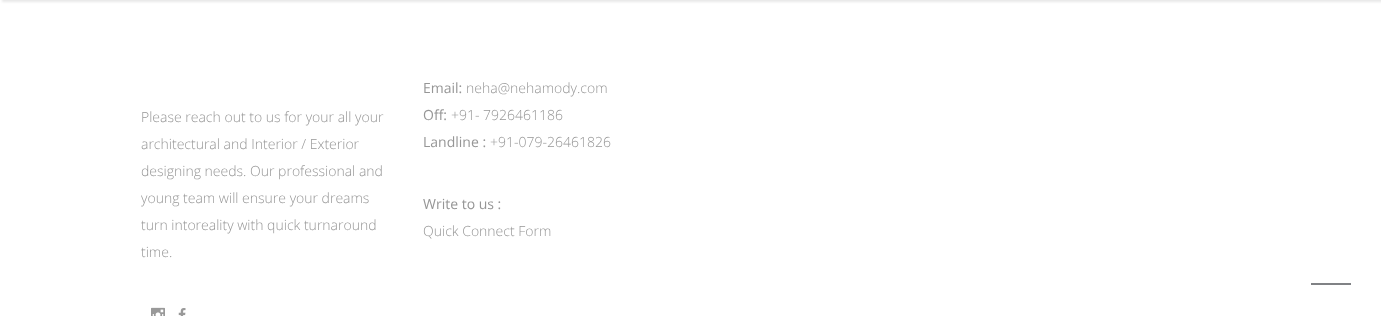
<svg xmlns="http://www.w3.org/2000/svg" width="1381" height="316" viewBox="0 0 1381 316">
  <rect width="100%" height="100%" fill="#fff"/>
  <path d="M2 -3h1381v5H2z" fill="#00000017" filter="blur(1px)"/>
  <image x="151" y="307" width="14" height="9" href="img/1.png"/>
  <image x="178" y="308" width="8" height="8" href="img/2.png"/>
  <path d="M1311 283h40v2H1311z" fill="#808285"/>
  <g font-family="Open Sans" font-size="14" font-weight="300" fill="#969696">
    <text x="141" y="122">Please reach out to us for your all your</text>
    <text x="141" y="149">architectural and Interior / Exterior</text>
    <text x="141" y="176">designing needs. Our professional and</text>
    <text x="141" y="203">young team will ensure your dreams</text>
    <text x="141" y="230">turn intoreality with quick turnaround</text>
    <text x="141" y="257">time.</text>
  </g>
  <text x="423" y="93" font-family="Open Sans" font-size="14" fill="#969696">Email:</text>
  <text x="466" y="93" font-family="Open Sans" font-size="14" font-weight="300" fill="#969696">neha@nehamody.com</text>
  <text x="423" y="120" font-family="Open Sans" font-size="14" fill="#969696">Off:</text>
  <text x="451" y="120" font-family="Open Sans" font-size="14" font-weight="300" fill="#969696">+91- 7926461186</text>
  <text x="423" y="147" font-family="Open Sans" font-size="14" fill="#969696">Landline :</text>
  <text x="490" y="147" font-family="Open Sans" font-size="14" font-weight="300" fill="#969696">+91-079-26461826</text>
  <text x="423" y="209" font-family="Open Sans" font-size="14" fill="#969696">Write to us :</text>
  <text x="423" y="236" font-family="Open Sans" font-size="14" font-weight="300" fill="#969696">Quick Connect Form</text>
</svg>
